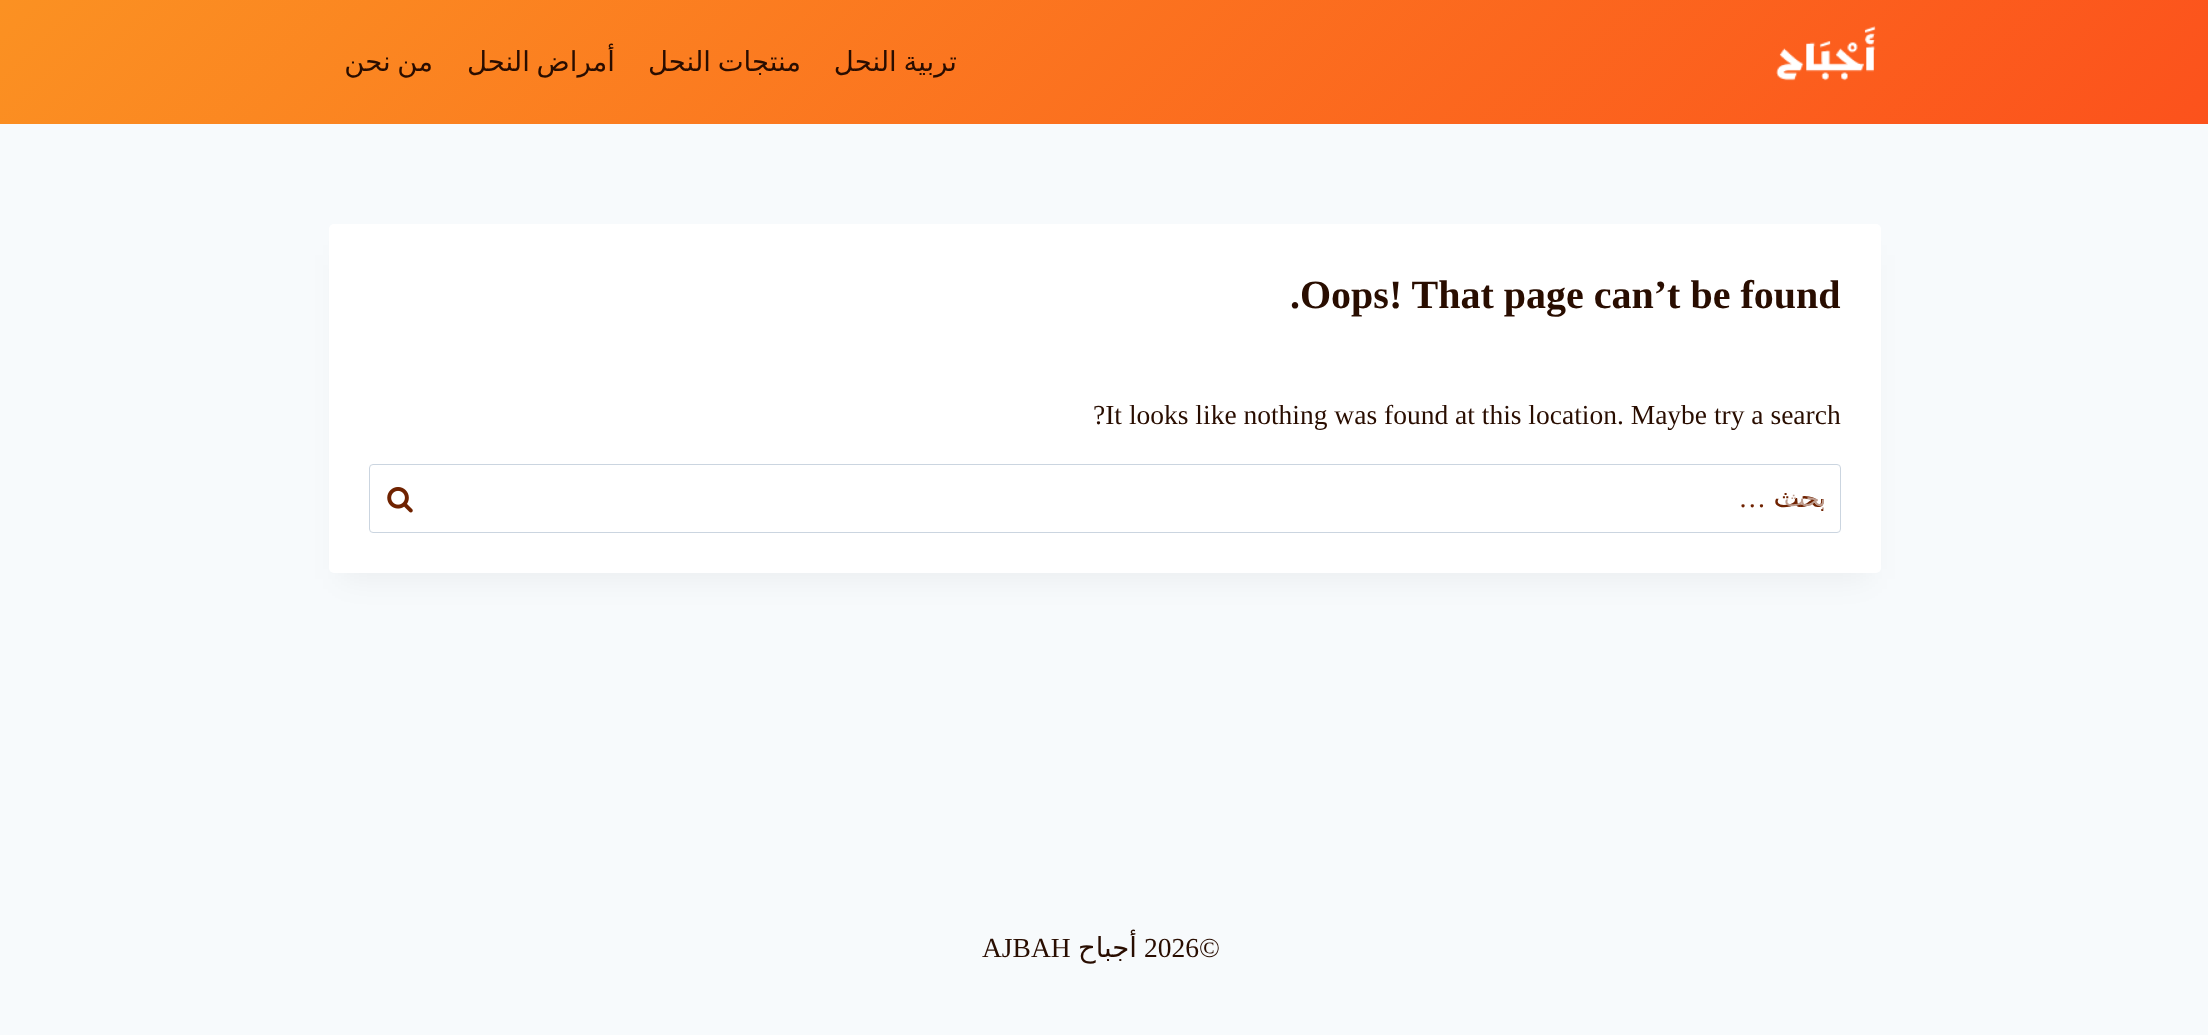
<svg xmlns="http://www.w3.org/2000/svg" width="2208" height="1035" viewBox="0 0 2208 1035">
  <defs>
    <linearGradient id="g1" gradientUnits="userSpaceOnUse" x1="521" y1="-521" x2="1688" y2="645"><stop offset="0" stop-color="#fb9122"/><stop offset="1" stop-color="#fc521c"/></linearGradient>
  </defs>
  <rect width="100%" height="100%" fill="#f7fafc"/>
  <path d="M0 0h2208v124H0z" fill="url(#g1)"/>
  <image x="1776" y="26" width="100" height="55" href="img/1.png"/>
  <path d="M341 255h1528v324H341z" fill="#0000000d" filter="blur(15.5px)"/>
  <rect x="329" y="224" width="1552" height="349" rx="5" fill="#fff"/>
  <rect x="369.5" y="464.5" width="1471" height="68" rx="3.5" fill="none" stroke="#cbd5e0"/>
  <image x="387" y="487" width="26" height="26" href="img/2.png"/>
  <g font-family="DejaVu Sans" font-size="27.5" direction="rtl" fill="#290d00">
    <text x="433" y="71" word-spacing="-2">من نحن</text>
    <text x="615" y="71" word-spacing="-2">أمراض النحل</text>
    <text x="801" y="71" word-spacing="-2">منتجات النحل</text>
    <text x="957" y="71" word-spacing="-2">تربية النحل</text>
  </g>
  <text x="1290" y="308" font-family="Liberation Serif" font-size="40" font-weight="bold" fill="#290d00">.Oops! That page can’t be found</text>
  <text x="1093" y="424" font-family="Liberation Serif" font-size="27.5" fill="#290d00">?It looks like nothing was found at this location. Maybe try a search</text>
  <text x="1766" y="507" font-family="Liberation Serif" font-size="27.5" direction="rtl" fill="#6f2200">…</text>
  <text x="1826" y="507" font-family="DejaVu Sans" font-size="27.5" direction="rtl" fill="#6f2200">بحث</text>
  <text x="1826" y="506" font-family="DejaVu Sans" font-size="22" direction="rtl" fill="#be9c8d">بحث</text>
  <text x="982" y="957" font-family="Liberation Serif" font-size="27.5" fill="#290d00">AJBAH</text>
  <text x="1137" y="957" font-family="DejaVu Sans" font-size="27.5" direction="rtl" fill="#290d00">أجباح</text>
  <text x="1144" y="957" font-family="Liberation Serif" font-size="27.5" fill="#290d00">2026©</text>
</svg>
